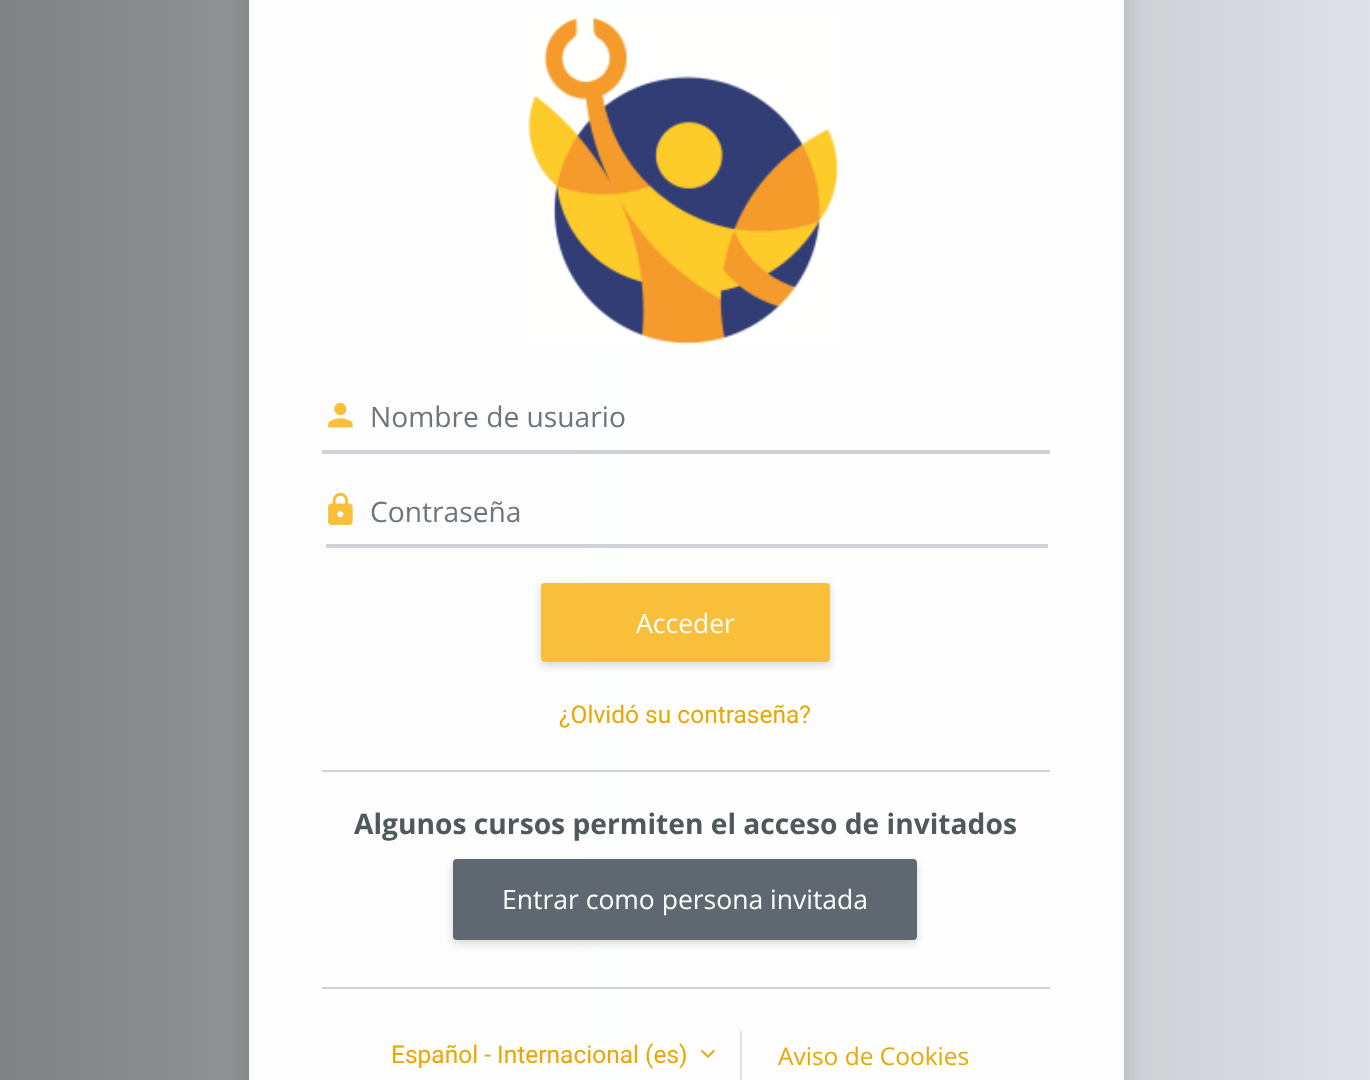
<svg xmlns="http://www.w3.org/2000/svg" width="1370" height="1080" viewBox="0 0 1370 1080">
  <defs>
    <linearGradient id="g1" gradientUnits="userSpaceOnUse" x1="0" y1="425" x2="1370" y2="425"><stop offset="0" stop-color="#7f8182"/><stop offset="1" stop-color="#dee2e6"/></linearGradient>
    <clipPath id="clip1"><path d="M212 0H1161V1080H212ZM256-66H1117C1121-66 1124-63 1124-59V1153C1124 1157 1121 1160 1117 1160H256C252 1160 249 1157 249 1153V-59C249-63 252-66 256-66Z" clip-rule="evenodd"/></clipPath>
  </defs>
  <rect width="100%" height="100%" fill="#fff"/>
  <path d="M0 0h1370v1080H0z" fill="url(#g1)"/>
  <g clip-path="url(#clip1)">
    <rect x="249" y="-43" width="875" height="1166" rx="7" fill="#00000026" filter="blur(12px)"/>
  </g>
  <path d="M249 0h875v1080H249z" fill="#fffffffa"/>
  <image x="528" y="16" width="311" height="329" href="img/1.png"/>
  <image x="328" y="402" width="25" height="26" href="img/2.png"/>
  <path d="M322 450h728v4H322z" fill="#cfd2d6"/>
  <image x="328" y="492" width="25" height="33" href="img/3.png"/>
  <path d="M326 544h722v4H326z" fill="#cfd2d6"/>
  <rect x="541" y="586" width="289" height="79" rx="4" fill="#00000029" filter="blur(4.5px)"/>
  <rect x="541" y="583" width="289" height="79" rx="4" fill="#f9bf3b"/>
  <path d="M322 770h728v2H322z" fill="#cfd2d6"/>
  <rect x="453" y="863" width="464" height="80" rx="4" fill="#00000029" filter="blur(4.5px)"/>
  <rect x="453" y="859" width="464" height="81" rx="4" fill="#5f6870"/>
  <path d="M322 987h728v2H322z" fill="#cfd2d6"/>
  <image x="701" y="1049" width="14" height="9" href="img/4.png"/>
  <path d="M740 1031h2v49H740z" fill="#dee2e6"/>
  <g font-family="Open Sans" font-size="28.2" fill="#6c757d">
    <text x="370" y="427">Nombre de usuario</text>
    <text x="370" y="522">Contraseña</text>
  </g>
  <text x="636" y="633" font-family="Open Sans" font-size="26.5" fill="#fff">Acceder</text>
  <text x="559" y="723" font-family="Roboto" font-size="24.5" fill="#eba600">¿Olvidó su contraseña?</text>
  <text x="354" y="834" font-family="Open Sans" font-size="28.2" font-weight="bold" fill="#4e585d">Algunos cursos permiten el acceso de invitados</text>
  <text x="502" y="909" font-family="Open Sans" font-size="26.5" fill="#fff">Entrar como persona invitada</text>
  <text x="391" y="1063" font-family="Roboto" font-size="24.5" fill="#eba600">Español - Internacional (es)</text>
  <text x="778" y="1065" font-family="Open Sans" font-size="24.5" fill="#eba600">Aviso de Cookies</text>
</svg>
